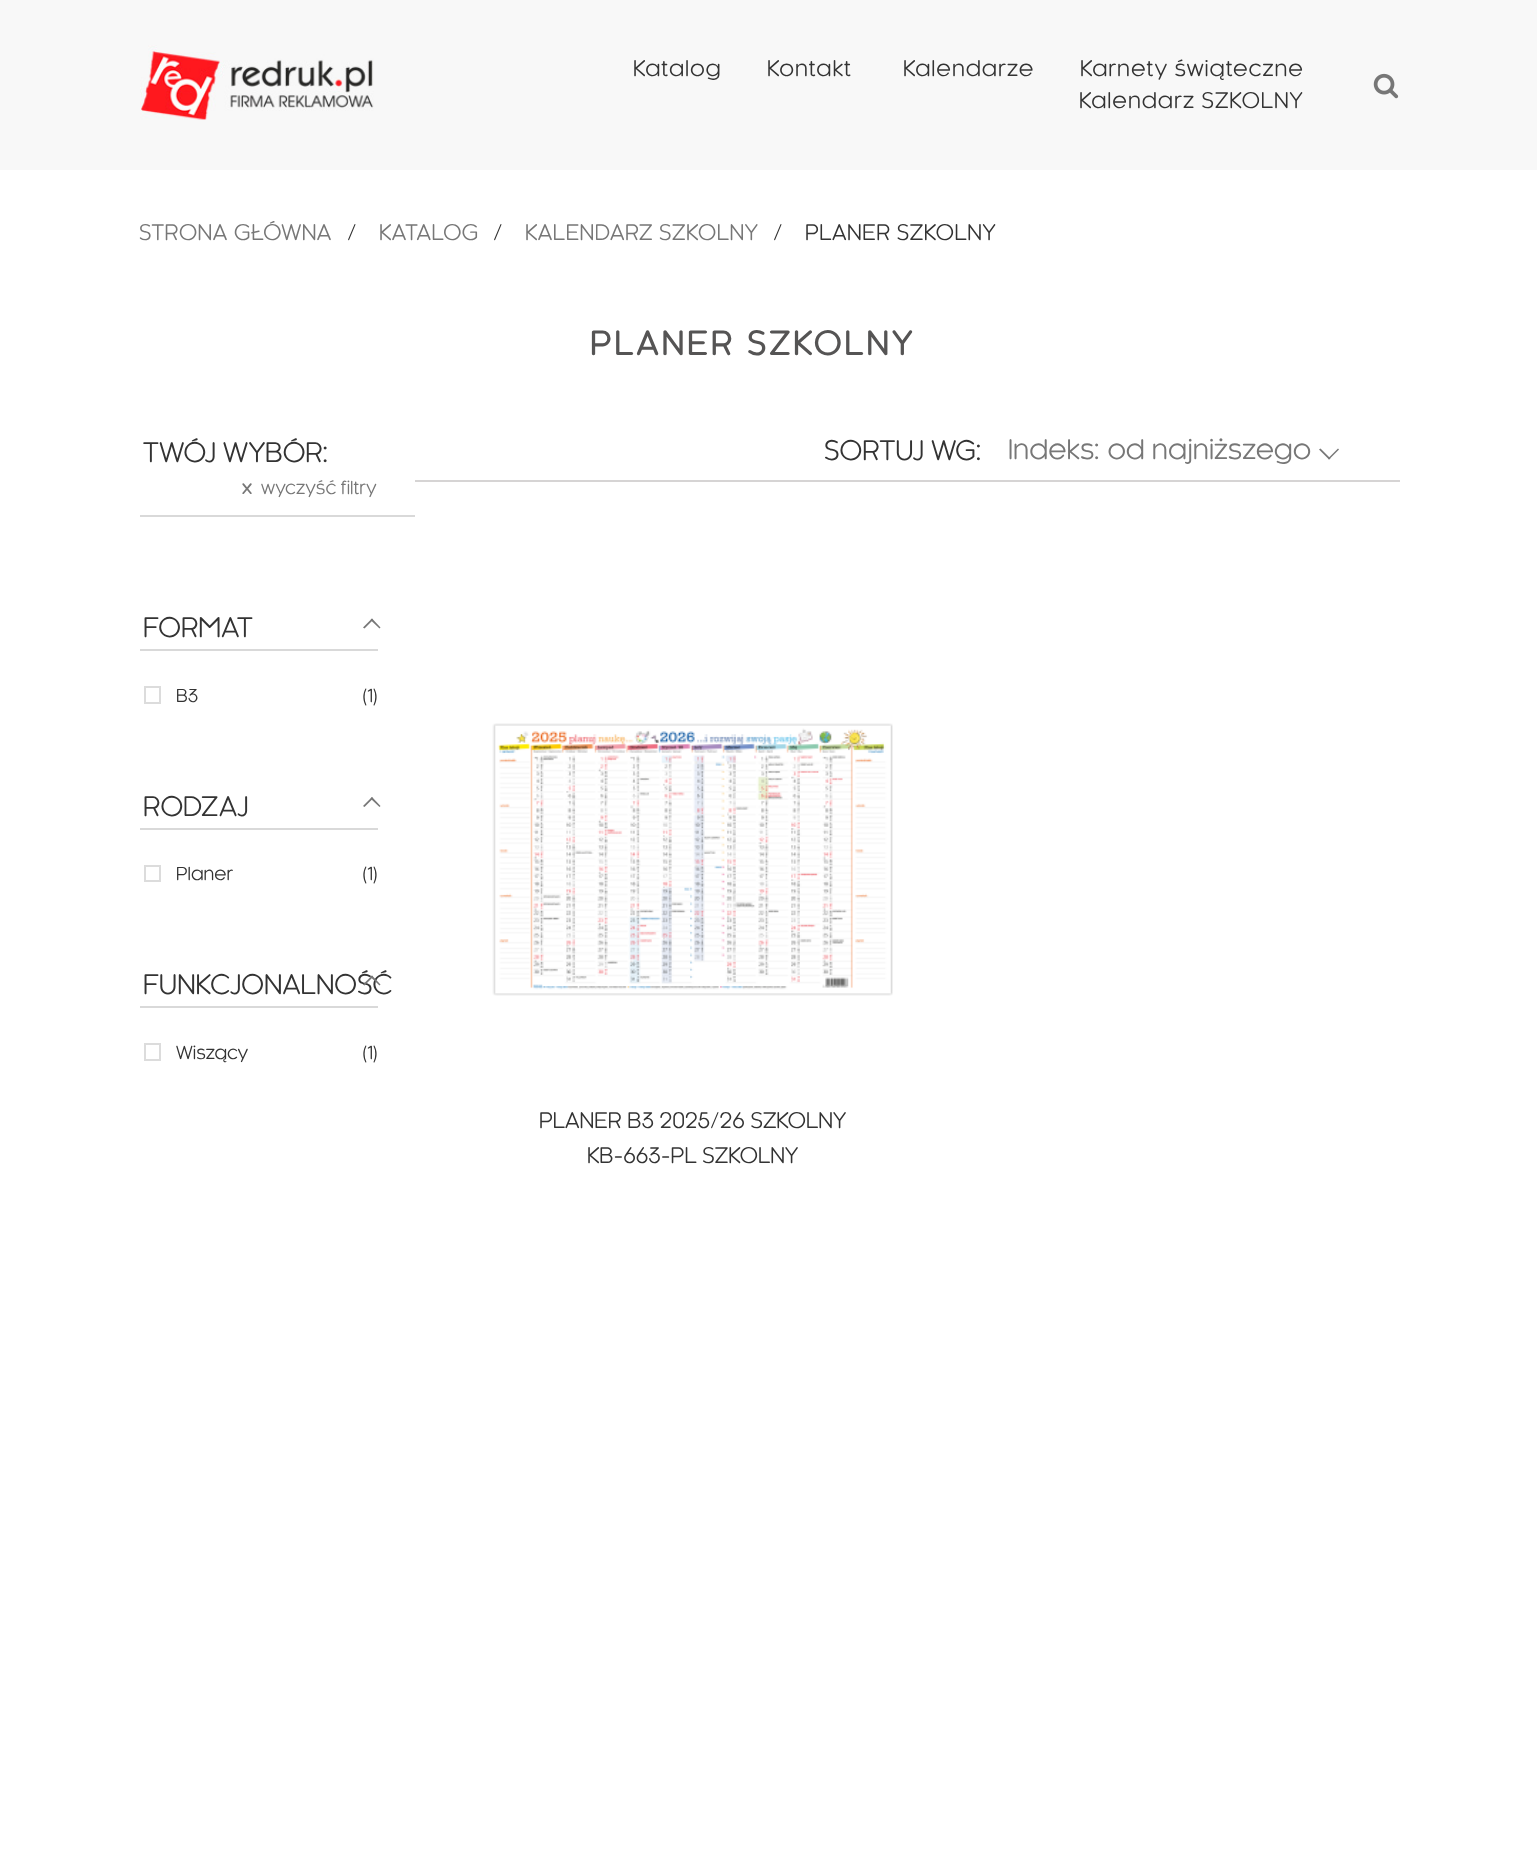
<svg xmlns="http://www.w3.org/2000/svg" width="1537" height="1864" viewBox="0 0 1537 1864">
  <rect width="100%" height="100%" fill="#fff"/>
  <path d="M0 0h1537v170H0z" fill="#f8f8f8"/>
  <image x="140" y="45" width="234" height="75" href="img/1.png"/>
  <image x="1373" y="73" width="26" height="26" href="img/2.png"/>
  <path d="M140 515h275v2H140z" fill="#d9d9d9"/>
  <path d="M140 649h238v2H140z" fill="#d9d9d9"/>
  <path d="M363 627.5L372 618.5L373 620L364.5 628.5Z" fill="#777"/>
  <path d="M370.5 620L372 618.5L380.5 627.5L379.5 628.5Z" fill="#777"/>
  <path d="M145 687h15v16H145z" fill="none" stroke="#dcdcdc" stroke-width="2"/>
  <path d="M140 828h238v2H140z" fill="#d9d9d9"/>
  <path d="M363 806L372 797L373 798.5L364.5 807Z" fill="#777"/>
  <path d="M370.5 798.5L372 797L380.5 806L379.5 807Z" fill="#777"/>
  <path d="M145 866h15v15H145z" fill="none" stroke="#dcdcdc" stroke-width="2"/>
  <path d="M140 1006h238v2H140z" fill="#d9d9d9"/>
  <path d="M145 1044h15v16H145z" fill="none" stroke="#dcdcdc" stroke-width="2"/>
  <path d="M415 480h985v2H415z" fill="#d6d4d4"/>
  <path d="M1339 449.5L1329 459.5L1328 458.5L1338 448.5Z" fill="#777"/>
  <path d="M1330.5 458.5L1329 459.5L1319 449.5L1320.5 448.5Z" fill="#777"/>
  <image x="492" y="723" width="401" height="273" href="img/3.png"/>
  <g font-family="'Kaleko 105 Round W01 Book'" font-size="21" letter-spacing="0.9" fill="#333">
    <text x="633" y="76">Katalog</text>
    <text x="767" y="76">Kontakt</text>
    <text x="903" y="76">Kalendarze</text>
    <text x="1080" y="76">Karnety świąteczne</text>
    <text x="1079" y="108">Kalendarz SZKOLNY</text>
  </g>
  <text x="139" y="240" font-family="'Kaleko 105 Round W01 Book'" font-size="21" letter-spacing="0.5" fill="#777">STRONA GŁÓWNA</text>
  <text x="347" y="240" font-family="'Kaleko 105 Round W01 Book'" font-size="21" letter-spacing="0.5" fill="#333">/</text>
  <text x="379" y="240" font-family="'Kaleko 105 Round W01 Book'" font-size="21" letter-spacing="0.5" fill="#777">KATALOG</text>
  <text x="493" y="240" font-family="'Kaleko 105 Round W01 Book'" font-size="21" letter-spacing="0.5" fill="#333">/</text>
  <text x="525" y="240" font-family="'Kaleko 105 Round W01 Book'" font-size="21" letter-spacing="0.5" fill="#777">KALENDARZ SZKOLNY</text>
  <g font-family="'Kaleko 105 Round W01 Book'" font-size="21" letter-spacing="0.5" fill="#333">
    <text x="773" y="240">/</text>
    <text x="805" y="240">PLANER SZKOLNY</text>
  </g>
  <text x="143" y="462" font-family="'Kaleko 105 Round W01 Book'" font-size="26.25" fill="#333">TWÓJ WYBÓR:</text>
  <text x="242" y="494" font-family="'Kaleko 105 Round W01 Book'" font-size="17.5" font-weight="bold" letter-spacing="2" fill="#777">x</text>
  <text x="261" y="494" font-family="'Kaleko 105 Round W01 Book'" font-size="17.5" fill="#777">wyczyść filtry</text>
  <text x="143" y="637" font-family="'Kaleko 105 Round W01 Book'" font-size="26.25" fill="#333">FORMAT</text>
  <g font-family="'Kaleko 105 Round W01 Book'" font-size="17.5" fill="#333">
    <text x="176" y="702">B3</text>
    <text x="362" y="702">(1)</text>
  </g>
  <text x="143" y="816" font-family="'Kaleko 105 Round W01 Book'" font-size="26.25" fill="#333">RODZAJ</text>
  <g font-family="'Kaleko 105 Round W01 Book'" font-size="17.5" fill="#333">
    <text x="176" y="880">Planer</text>
    <text x="362" y="880">(1)</text>
  </g>
  <text x="143" y="994" font-family="'Kaleko 105 Round W01 Book'" font-size="26.25" fill="#333">FUNKCJONALNOŚĆ</text>
  <path d="M363 984.5L372 975.5L373 977L364.5 985.5Z" fill="#777"/>
  <path d="M370.5 977L372 975.5L380.5 984.5L379.5 985.5Z" fill="#777"/>
  <g font-family="'Kaleko 105 Round W01 Book'" font-size="17.5" fill="#333">
    <text x="176" y="1059">Wiszący</text>
    <text x="362" y="1059">(1)</text>
  </g>
  <text x="590" y="355" font-family="'Kaleko 105 Round W01 Book'" font-size="31.5" font-weight="bold" letter-spacing="3.5" fill="#555454">PLANER SZKOLNY</text>
  <text x="824" y="460" font-family="'Kaleko 105 Round W01 Book'" font-size="26.25" fill="#333">SORTUJ WG:</text>
  <text x="1008" y="459" font-family="'Kaleko 105 Round W01 Book'" font-size="26.25" fill="#777">Indeks: od najniższego</text>
  <g font-family="'Kaleko 105 Round W01 Book'" font-size="21" fill="#333">
    <text x="539" y="1128">PLANER B3 2025/26 SZKOLNY</text>
    <text x="587" y="1163">KB-663-PL SZKOLNY</text>
  </g>
</svg>
